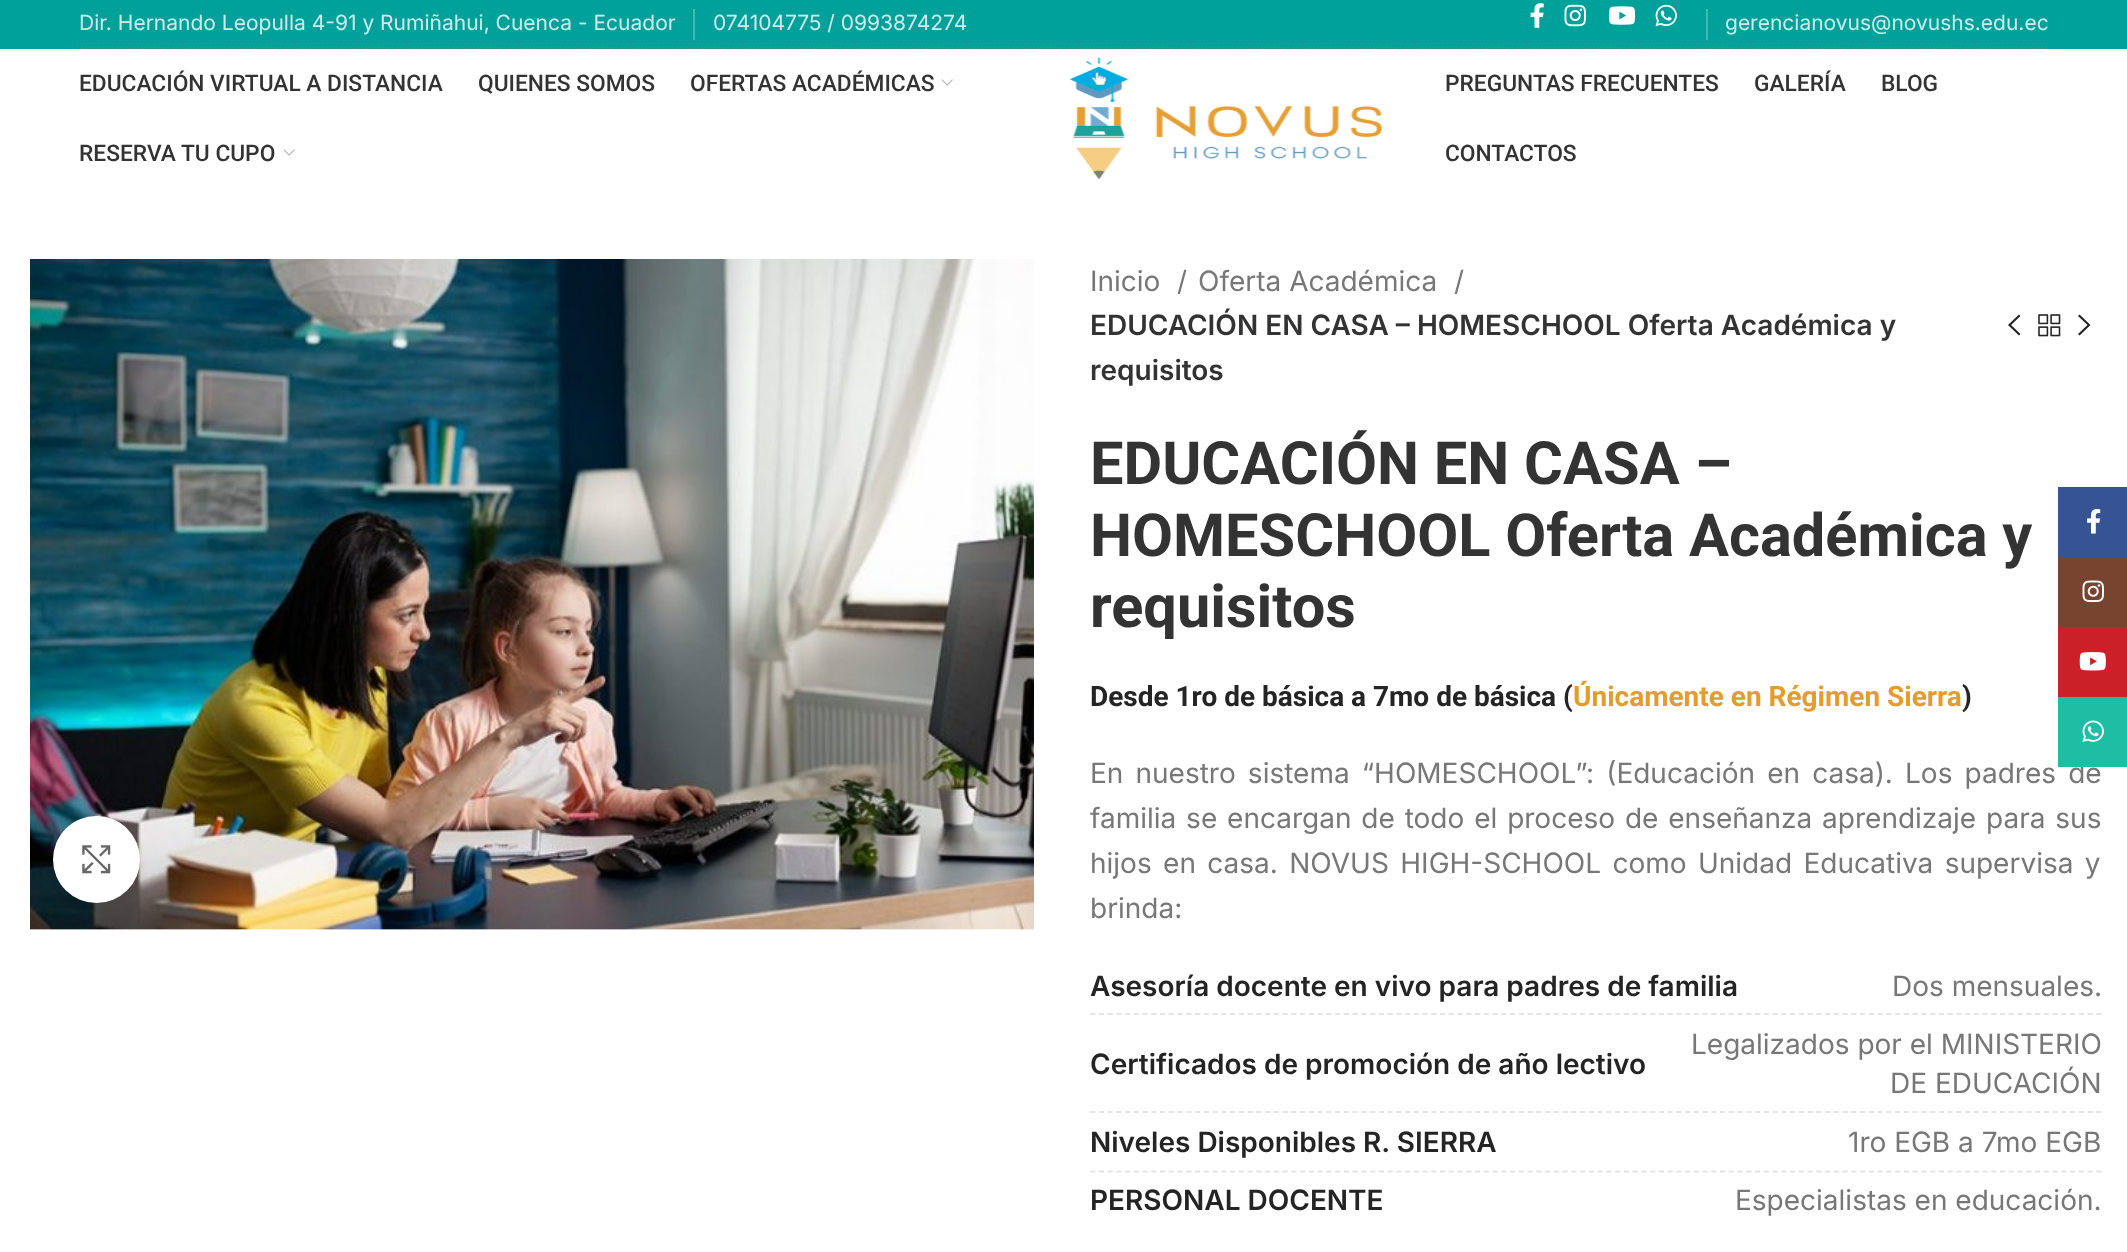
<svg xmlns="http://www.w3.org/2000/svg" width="2127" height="1252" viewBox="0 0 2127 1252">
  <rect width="100%" height="100%" fill="#fff"/>
  <path d="M0 0h2127v49H0z" fill="#00a19a"/>
  <path d="M79 48H2049" fill="none" stroke="#777" stroke-width="1.8" stroke-dasharray="1.75 1.75"/>
  <path d="M693 9h2v31H693z" fill="#40b9b3"/>
  <image x="1530" y="3" width="14" height="25" href="img/1.png"/>
  <image x="1564" y="4" width="22" height="23" href="img/2.png"/>
  <image x="1608" y="6" width="28" height="19" href="img/3.png"/>
  <image x="1655" y="4" width="22" height="23" href="img/4.png"/>
  <path d="M1706 9h2v31H1706z" fill="#40b9b3"/>
  <image x="941" y="79" width="12" height="7" href="img/5.png"/>
  <image x="283" y="149" width="12" height="7" href="img/5.png"/>
  <image x="1069" y="57" width="313" height="123" href="img/6.png"/>
  <image x="30" y="259" width="1004" height="671" href="img/7.png"/>
  <rect x="53" y="816" width="87" height="87" rx="43.5" fill="#00000014" filter="blur(4.5px)"/>
  <circle cx="96.5" cy="859.5" r="43.5" fill="#fff"/>
  <image x="82" y="845" width="29" height="29" href="img/8.png"/>
  <path d="M2020.5 316L2011 325L2020.5 334L2019 335.5L2008 325L2019 314.5Z" fill="#242424"/>
  <image x="2038" y="314" width="23" height="23" href="img/9.png"/>
  <path d="M2079.5 314.5L2090.5 325L2079.5 335.5L2078 334L2087.5 325L2078 316Z" fill="#242424"/>
  <path d="M1090 1014H2102" fill="none" stroke="#e4e4e4" stroke-width="1.8" stroke-dasharray="5.25 3.5"/>
  <path d="M1090 1112H2102" fill="none" stroke="#e4e4e4" stroke-width="1.8" stroke-dasharray="5.25 3.5"/>
  <path d="M1090 1171.5H2102" fill="none" stroke="#e4e4e4" stroke-width="1.8" stroke-dasharray="5.25 3.5"/>
  <path d="M2058 487h69v70H2058z" fill="#365493"/>
  <image x="2087" y="509" width="14" height="25" href="img/10.png"/>
  <path d="M2058 557h69v70H2058z" fill="#774430"/>
  <image x="2082" y="580" width="22" height="22" href="img/11.png"/>
  <path d="M2058 627h69v70H2058z" fill="#cb2027"/>
  <image x="2079" y="652" width="27" height="19" href="img/12.png"/>
  <g font-family="Inter" font-size="21" fill="#cceceb">
    <text x="79" y="30">Dir. Hernando Leopulla 4-91 y Rumiñahui, Cuenca - Ecuador</text>
    <text x="713" y="30">074104775 / 0993874274</text>
    <text x="1725" y="30">gerencianovus@novushs.edu.ec</text>
  </g>
  <g font-family="Roboto" font-size="22.75" font-weight="500" fill="#333">
    <text x="79" y="91">EDUCACIÓN VIRTUAL A DISTANCIA</text>
    <text x="478" y="91">QUIENES SOMOS</text>
    <text x="690" y="91">OFERTAS ACADÉMICAS</text>
    <text x="79" y="161">RESERVA TU CUPO</text>
    <text x="1445" y="91">PREGUNTAS FRECUENTES</text>
    <text x="1754" y="91">GALERÍA</text>
    <text x="1881" y="91">BLOG</text>
    <text x="1445" y="161">CONTACTOS</text>
  </g>
  <g font-family="Inter" font-size="28" fill="#777">
    <text x="1090" y="291">Inicio</text>
    <text x="1177" y="291">/</text>
    <text x="1198" y="291">Oferta Académica</text>
    <text x="1454" y="291">/</text>
  </g>
  <g font-family="Inter" font-size="28" font-weight="600" fill="#333">
    <text x="1090" y="335">EDUCACIÓN EN CASA – HOMESCHOOL Oferta Académica y</text>
    <text x="1090" y="380">requisitos</text>
  </g>
  <g font-family="Roboto" font-size="59.5" font-weight="bold" fill="#333">
    <text x="1090" y="484">EDUCACIÓN EN CASA –</text>
    <text x="1090" y="556">HOMESCHOOL Oferta Académica y</text>
    <text x="1090" y="627">requisitos</text>
  </g>
  <text x="1090" y="706" font-family="Roboto" font-size="28" font-weight="bold" fill="#242424">Desde 1ro de básica a 7mo de básica (</text>
  <text x="1573" y="706" font-family="Roboto" font-size="28" font-weight="bold" fill="#e49c2c">Únicamente en Régimen Sierra</text>
  <text x="1962" y="706" font-family="Roboto" font-size="28" font-weight="bold" fill="#242424">)</text>
  <g font-family="Inter" font-size="28" fill="#777">
    <text x="1090" y="783" word-spacing="4.25">En nuestro sistema “HOMESCHOOL”: (Educación en casa). Los padres de</text>
    <text x="1090" y="828" word-spacing="2">familia se encargan de todo el proceso de enseñanza aprendizaje para sus</text>
    <text x="1090" y="873" word-spacing="3.5">hijos en casa. NOVUS HIGH-SCHOOL como Unidad Educativa supervisa y</text>
    <text x="1090" y="918">brinda:</text>
  </g>
  <text x="1090" y="996" font-family="Inter" font-size="28" font-weight="600" fill="#242424">Asesoría docente en vivo para padres de familia</text>
  <text x="1892" y="996" font-family="Inter" font-size="28" fill="#777">Dos mensuales.</text>
  <text x="1090" y="1074" font-family="Inter" font-size="28" font-weight="600" fill="#242424">Certificados de promoción de año lectivo</text>
  <g font-family="Inter" font-size="28" fill="#777">
    <text x="1691" y="1054">Legalizados por el MINISTERIO</text>
    <text x="1890" y="1093">DE EDUCACIÓN</text>
  </g>
  <text x="1090" y="1152" font-family="Inter" font-size="28" font-weight="600" fill="#242424">Niveles Disponibles R. SIERRA</text>
  <text x="1848" y="1152" font-family="Inter" font-size="28" fill="#777">1ro EGB a 7mo EGB</text>
  <text x="1090" y="1210" font-family="Inter" font-size="28" font-weight="600" fill="#242424">PERSONAL DOCENTE</text>
  <text x="1735" y="1210" font-family="Inter" font-size="28" fill="#777">Especialistas en educación.</text>
  <path d="M2058 697h69v70H2058z" fill="#1ebea5"/>
  <image x="2082" y="720" width="22" height="22" href="img/13.png"/>
</svg>
